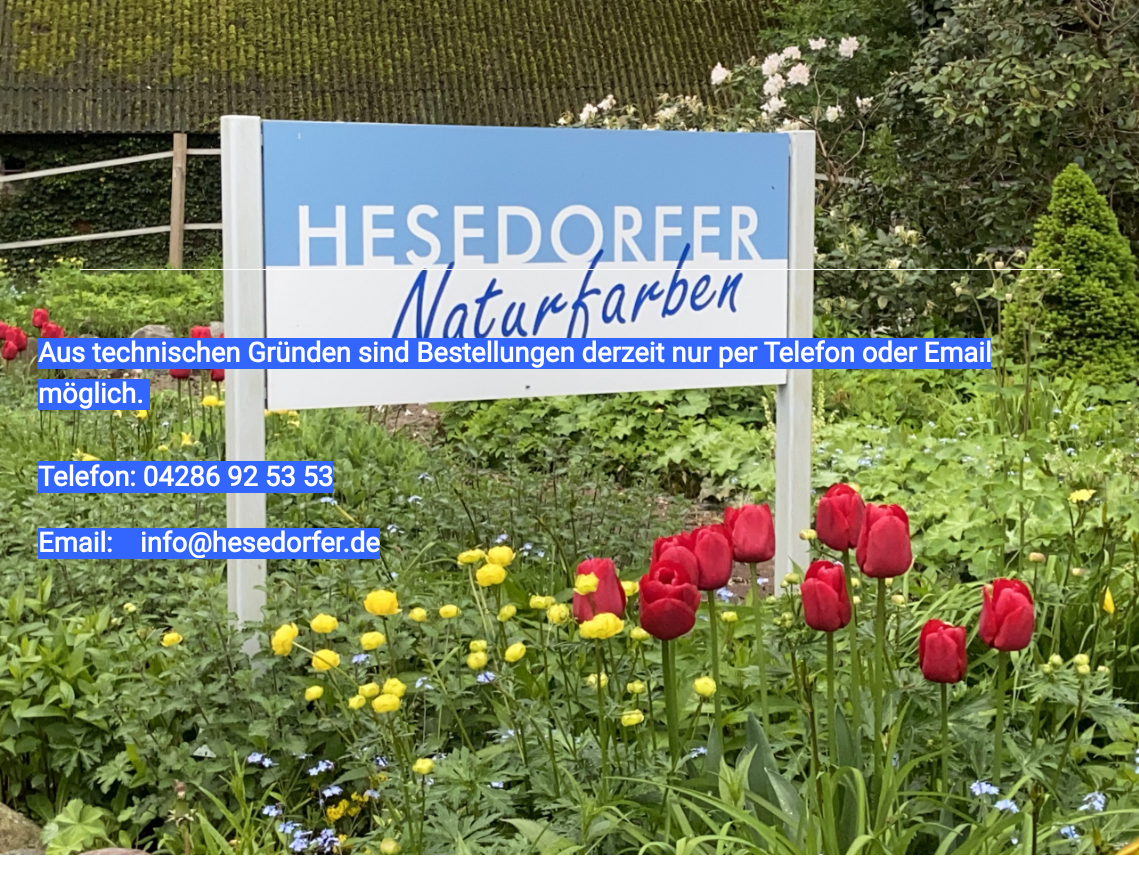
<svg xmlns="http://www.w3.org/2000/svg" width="1139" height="885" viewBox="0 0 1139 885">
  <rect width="100%" height="100%" fill="#fff"/>
  <image x="0" y="0" width="1139" height="855" href="img/1.png"/>
  <path d="M80 269h980v1H80z" fill="#fff"/>
  <path d="M38 338h953v31H38z" fill="#36f"/>
  <path d="M38 379h112v31H38z" fill="#36f"/>
  <path d="M38 461h295v32H38z" fill="#36f"/>
  <path d="M38 528h342v31H38z" fill="#36f"/>
  <g font-family="Roboto" font-size="27.5" font-weight="bold" fill="#fff">
    <text x="38" y="362">Aus technischen Gründen sind Bestellungen derzeit nur per Telefon oder Email</text>
    <text x="38" y="403">möglich.</text>
    <text x="38" y="486">Telefon: 04286 92 53 53</text>
    <text x="38" y="552" xml:space="preserve">Email:    info@hesedorfer.de</text>
  </g>
</svg>
